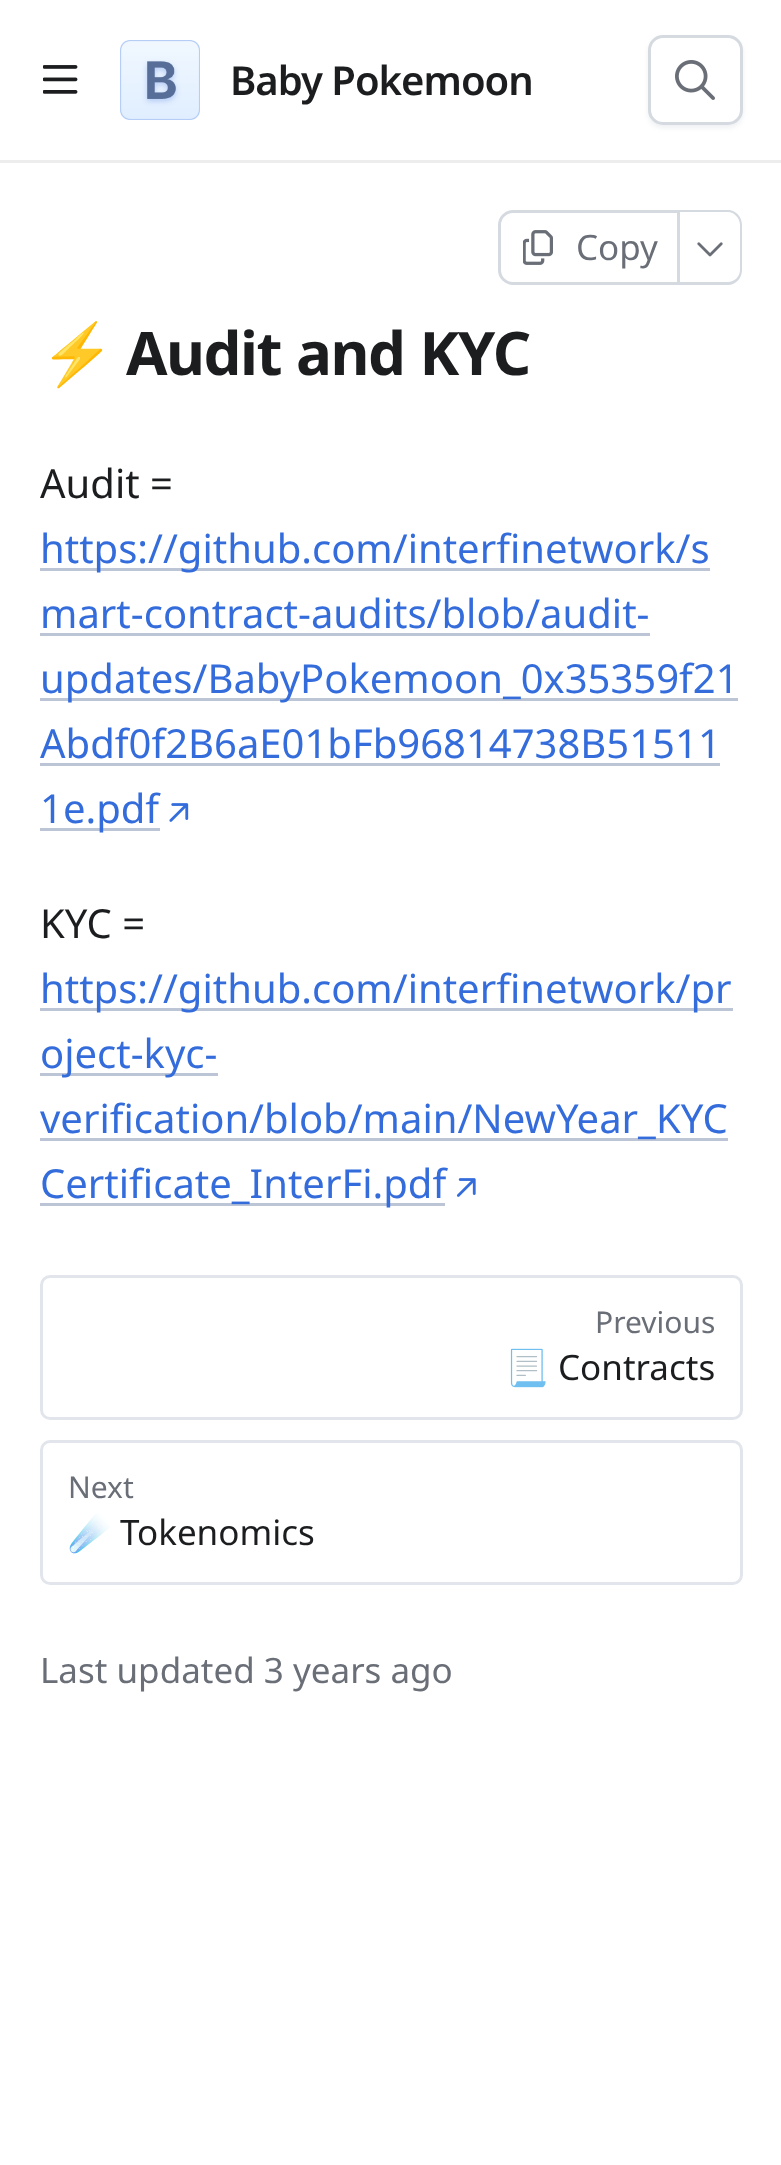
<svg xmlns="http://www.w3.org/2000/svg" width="781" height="2165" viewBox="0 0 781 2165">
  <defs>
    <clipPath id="clip1"><path d="M68 1508h632v50H68z"/></clipPath>
  </defs>
  <rect width="100%" height="100%" fill="#fff"/>
  <path d="M0 160V163H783V3H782V160Z" fill="#ededed"/>
  <image x="43" y="65" width="35" height="29" href="img/1.png"/>
  <image x="120" y="40" width="80" height="80" href="img/2.png"/>
  <rect x="648" y="38" width="95" height="90" rx="15" fill="#d5d9e066" filter="blur(2.5px)"/>
  <rect x="649.5" y="36.5" width="92" height="87" rx="13.5" fill="#fff" stroke="#d5d9e0" stroke-width="3"/>
  <image x="675" y="60" width="40" height="40" href="img/3.png"/>
  <path d="M513 211.5H678.5V283.5H513C505.5 283.5 499.5 277.5 499.5 270V225C499.5 217.5 505.5 211.5 513 211.5Z" fill="none" stroke="#d5d9e0" stroke-width="3"/>
  <image x="523" y="230" width="30" height="35" href="img/4.png"/>
  <path d="M680 210H728C736 210 742 217 742 225V270C742 278 736 285 728 285H680ZM680 212H728C734 212 740 218 740 225V270C740 277 734 282 728 282H680Z" fill="#d5d9e0" fill-rule="evenodd"/>
  <image x="697" y="242" width="26" height="15" href="img/5.png"/>
  <path d="M40 568h670v3H40z" fill="#bcc5d6"/>
  <path d="M40 633h610v3H40z" fill="#bcc5d6"/>
  <path d="M40 698h698v3H40z" fill="#bcc5d6"/>
  <path d="M40 763h680v3H40z" fill="#bcc5d6"/>
  <path d="M40 828h120v3H40z" fill="#bcc5d6"/>
  <image x="169" y="803" width="20" height="19" href="img/6.png"/>
  <path d="M40 1008h693v3H40z" fill="#bcc5d6"/>
  <path d="M40 1073h178v3H40z" fill="#bcc5d6"/>
  <path d="M40 1138h688v3H40z" fill="#bcc5d6"/>
  <path d="M40 1203h405v3H40z" fill="#bcc5d6"/>
  <image x="456" y="1178" width="20" height="19" href="img/7.png"/>
  <rect x="41.5" y="1276.5" width="700" height="142" rx="8.5" fill="none" stroke="#e2e6ec" stroke-width="3"/>
  <rect x="41.5" y="1441.5" width="700" height="142" rx="8.5" fill="none" stroke="#e2e6ec" stroke-width="3"/>
  <text x="230" y="95" font-family="Noto Sans" font-size="40" font-weight="600" letter-spacing="-1" fill="#1c1d1f">Baby Pokemoon</text>
  <text x="576" y="260" font-family="Noto Sans" font-size="35" fill="#6a6e77">Copy</text>
  <text x="40" y="375" font-family="Noto Color Emoji" font-size="60" font-weight="bold" letter-spacing="-1.5" fill="#1c1d1f">⚡️</text>
  <text x="126" y="375" word-spacing="1" font-family="Noto Sans" font-size="60" font-weight="bold" letter-spacing="-1.5" fill="#1c1d1f">Audit and KYC</text>
  <text x="40" y="498" font-family="Noto Sans" font-size="40" fill="#1c1d1f">Audit =</text>
  <g font-family="Noto Sans" font-size="40" fill="#346ddb">
    <text x="40" y="563">https://github.com/interfinetwork/s</text>
    <text x="40" y="628">mart-contract-audits/blob/audit-</text>
    <text x="40" y="693">updates/BabyPokemoon_0x35359f21</text>
    <text x="40" y="758">Abdf0f2B6aE01bFb96814738B51511</text>
    <text x="40" y="823">1e.pdf</text>
  </g>
  <text x="40" y="938" font-family="Noto Sans" font-size="40" fill="#1c1d1f">KYC =</text>
  <g font-family="Noto Sans" font-size="40" fill="#346ddb">
    <text x="40" y="1003">https://github.com/interfinetwork/pr</text>
    <text x="40" y="1068">oject-kyc-</text>
    <text x="40" y="1133">verification/blob/main/NewYear_KYC</text>
    <text x="40" y="1198">Certificate_InterFi.pdf</text>
  </g>
  <text x="595" y="1333" font-family="Noto Sans" font-size="30" fill="#6a6e77">Previous</text>
  <text x="505" y="1380" font-family="Noto Color Emoji" font-size="35" fill="#1c1d1f">📃</text>
  <text x="558" y="1380" font-family="Noto Sans" font-size="35" fill="#1c1d1f">Contracts</text>
  <text x="68" y="1498" font-family="Noto Sans" font-size="30" fill="#6a6e77">Next</text>
  <g clip-path="url(#clip1)">
    <text x="68" y="1545" font-family="Noto Color Emoji" font-size="35" fill="#1c1d1f">☄️</text>
  </g>
  <text x="120" y="1545" font-family="Noto Sans" font-size="35" fill="#1c1d1f">Tokenomics</text>
  <text x="40" y="1683" font-family="Noto Sans" font-size="35" fill="#6a6e77">Last updated 3 years ago</text>
</svg>
